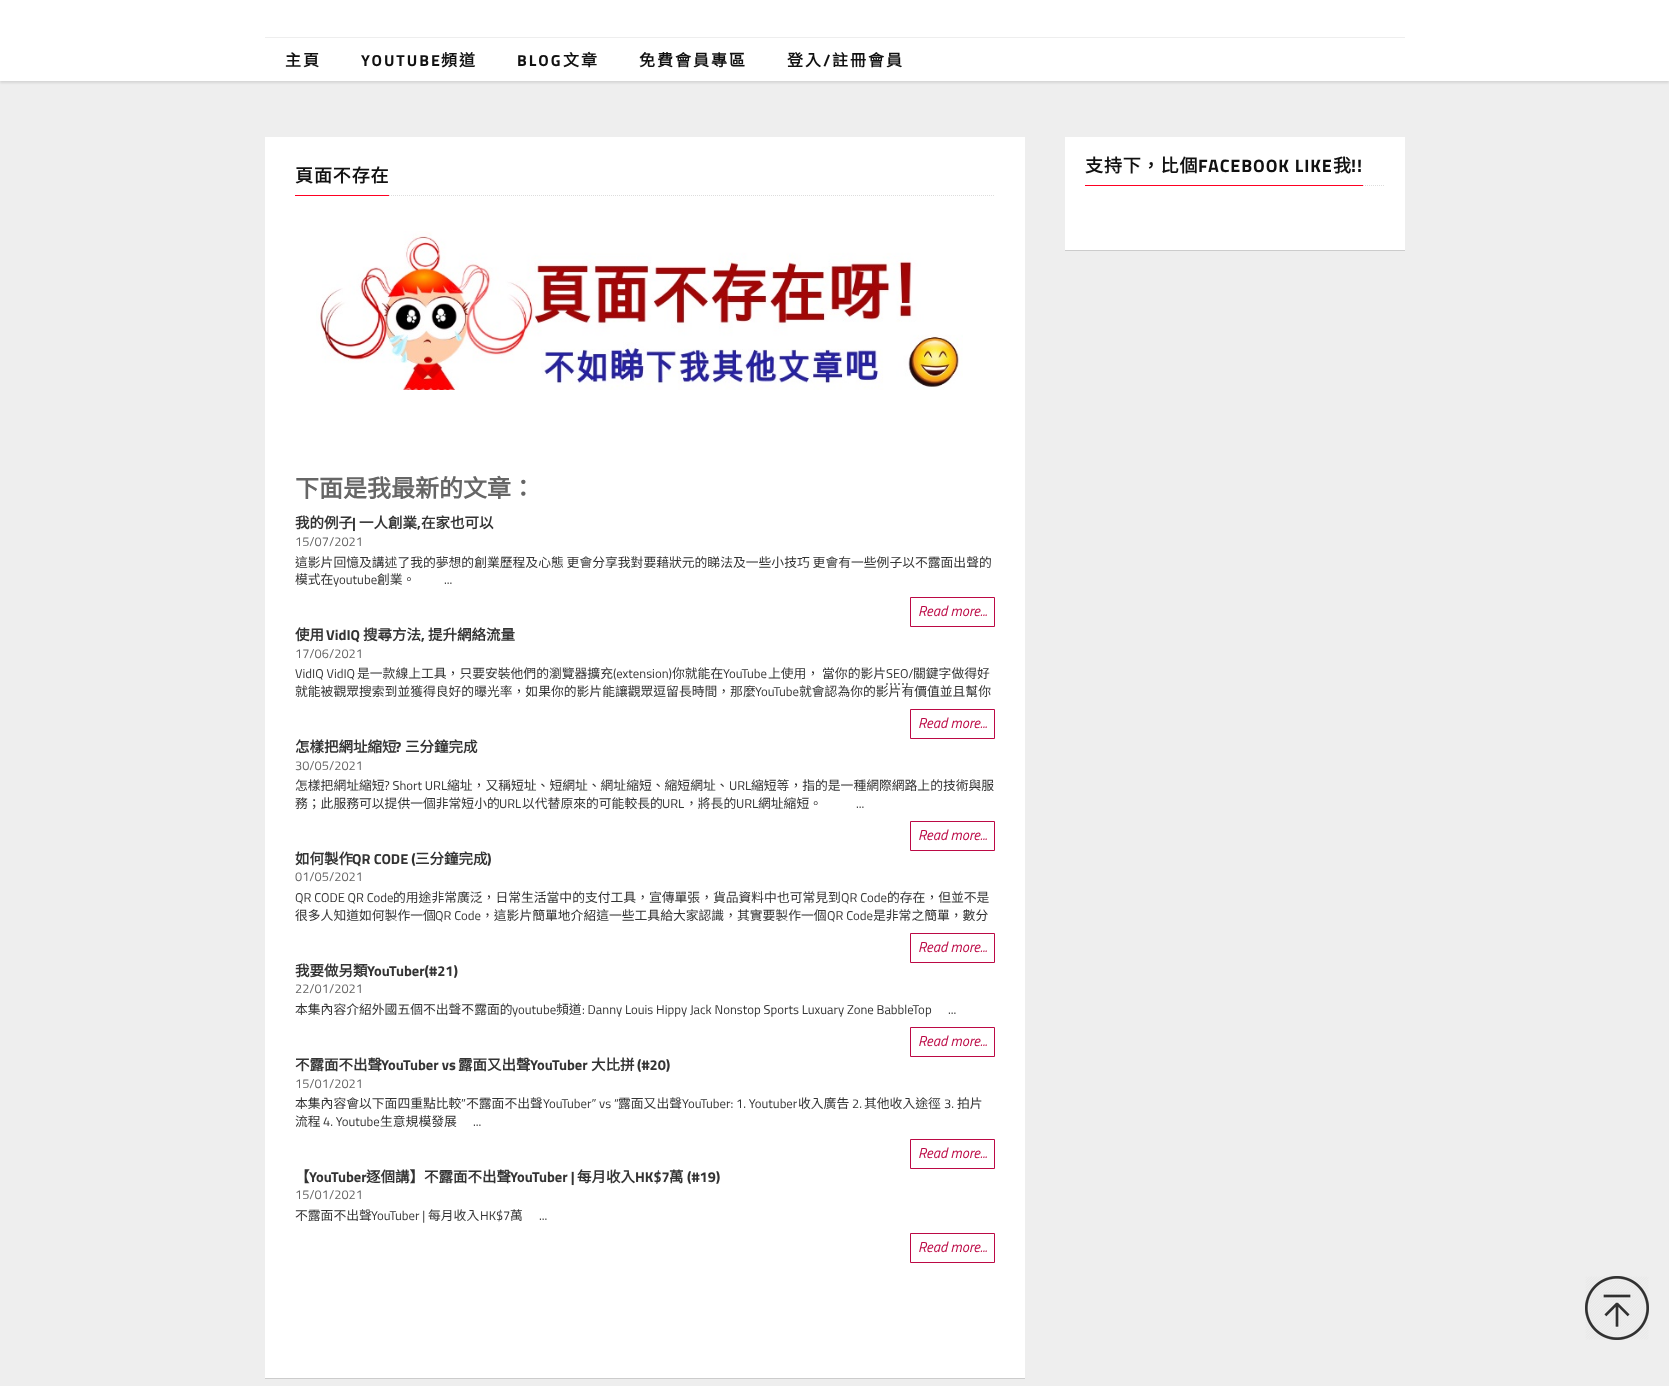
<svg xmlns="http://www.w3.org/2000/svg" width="1669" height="1386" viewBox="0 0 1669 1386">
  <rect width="100%" height="100%" fill="#eee"/>
  <path d="M0 -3h1669v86H0z" fill="#0000001a" filter="blur(1px)"/>
  <path d="M0 0h1669v81H0z" fill="#fff"/>
  <path d="M265 37h1140v1H265z" fill="#eee"/>
  <path d="M265 137h760v1241H265z" fill="#fff"/>
  <path d="M265 1378h760v1H265z" fill="#ccc"/>
  <path d="M295 195.5H995" fill="none" stroke="#ddd" stroke-dasharray="1 1"/>
  <path d="M295 195h94v1H295z" fill="#f02"/>
  <image x="316" y="231" width="647" height="159" href="img/1.png"/>
  <path d="M910.5 597.5h84v29H910.5z" fill="none" stroke="#bc0945"/>
  <path d="M886 684H908" fill="none" stroke="#888" stroke-width="2" stroke-dasharray="2 2"/>
  <path d="M910.5 709.5h84v29H910.5z" fill="none" stroke="#bc0945"/>
  <path d="M910.5 821.5h84v29H910.5z" fill="none" stroke="#bc0945"/>
  <path d="M910.5 933.5h84v29H910.5z" fill="none" stroke="#bc0945"/>
  <path d="M910.5 1027.5h84v29H910.5z" fill="none" stroke="#bc0945"/>
  <path d="M910.5 1139.5h84v29H910.5z" fill="none" stroke="#bc0945"/>
  <path d="M910.5 1233.5h84v29H910.5z" fill="none" stroke="#bc0945"/>
  <path d="M1065 137h340v113H1065z" fill="#fff"/>
  <path d="M1065 250h340v1H1065z" fill="#ccc"/>
  <path d="M1085 185.5H1385" fill="none" stroke="#ddd" stroke-dasharray="1 1"/>
  <path d="M1085 185h278v1H1085z" fill="#f02"/>
  <image x="1585" y="1276" width="64" height="64" href="img/2.png"/>
  <text x="285" y="66" font-family="Noto Sans CJK HK" font-size="16" font-weight="bold" letter-spacing="2" fill="#111">主頁</text>
  <text x="361" y="66" font-family="Titillium Web" font-size="16" font-weight="bold" letter-spacing="2" fill="#111">YOUTUBE</text>
  <text x="441" y="66" font-family="Noto Sans CJK HK" font-size="16" font-weight="bold" letter-spacing="2" fill="#111">頻道</text>
  <text x="517" y="66" font-family="Titillium Web" font-size="16" font-weight="bold" letter-spacing="2" fill="#111">BLOG</text>
  <g font-family="Noto Sans CJK HK" font-size="16" font-weight="bold" letter-spacing="2" fill="#111">
    <text x="563" y="66">文章</text>
    <text x="639" y="66">免費會員專區</text>
    <text x="787" y="66">登入</text>
  </g>
  <text x="823" y="66" font-family="Titillium Web" font-size="16" font-weight="bold" letter-spacing="2" fill="#111">/</text>
  <text x="832" y="66" font-family="Noto Sans CJK HK" font-size="16" font-weight="bold" letter-spacing="2" fill="#111">註冊會員</text>
  <text x="295" y="182" font-family="Noto Sans CJK HK" font-size="18" font-weight="bold" letter-spacing="0.9" fill="#111">頁面不存在</text>
  <text x="295" y="497" font-family="Noto Sans CJK HK" font-size="24" font-weight="bold" fill="#666">下面是我最新的文章：</text>
  <text x="295" y="528" font-family="Noto Sans CJK HK" font-size="14.5" font-weight="bold" fill="#333">我的例子</text>
  <text x="352" y="528" font-family="Titillium Web" font-size="14.5" font-weight="bold" fill="#333">|</text>
  <text x="359" y="528" font-family="Noto Sans CJK HK" font-size="14.5" font-weight="bold" fill="#333">一人創業</text>
  <text x="417" y="528" font-family="Titillium Web" font-size="14.5" font-weight="bold" fill="#333">,</text>
  <text x="421" y="528" font-family="Noto Sans CJK HK" font-size="14.5" font-weight="bold" fill="#333">在家也可以</text>
  <text x="295" y="546" font-family="Titillium Web" font-size="12.8" fill="#666">15/07/2021</text>
  <g font-family="Noto Sans CJK HK" font-size="12.8" fill="#333">
    <text x="295" y="567">這影片回憶及講述了我的夢想的創業歷程及心態 更會分享我對要藉狀元的睇法及一些小技巧 更會有一些例子以不露面出聲的</text>
    <text x="295" y="584">模式在</text>
  </g>
  <text x="333" y="584" font-family="Titillium Web" font-size="12.8" fill="#333">youtube</text>
  <text x="377" y="584" font-family="Noto Sans CJK HK" font-size="12.8" fill="#333">創業。</text>
  <text x="444" y="584" font-family="Titillium Web" font-size="12.8" fill="#333">...</text>
  <text x="918" y="616" font-family="Titillium Web" font-size="14.5" font-style="italic" fill="#bc0945">Read more...</text>
  <text x="295" y="640" font-family="Noto Sans CJK HK" font-size="14.5" font-weight="bold" fill="#333">使用</text>
  <text x="326" y="640" font-family="Titillium Web" font-size="14.5" font-weight="bold" fill="#333">VidIQ</text>
  <text x="363" y="640" font-family="Noto Sans CJK HK" font-size="14.5" font-weight="bold" fill="#333">搜尋方法</text>
  <text x="421" y="640" font-family="Titillium Web" font-size="14.5" font-weight="bold" fill="#333">,</text>
  <text x="428" y="640" font-family="Noto Sans CJK HK" font-size="14.5" font-weight="bold" fill="#333">提升網絡流量</text>
  <text x="295" y="658" font-family="Titillium Web" font-size="12.8" fill="#666">17/06/2021</text>
  <text x="295" y="678" font-family="Titillium Web" font-size="12.8" fill="#333">VidIQ VidIQ</text>
  <text x="357" y="678" font-family="Noto Sans CJK HK" font-size="12.8" fill="#333">是一款線上工具，只要安裝他們的瀏覽器擴充</text>
  <text x="613" y="678" font-family="Titillium Web" font-size="12.8" fill="#333">(extension)</text>
  <text x="672" y="678" font-family="Noto Sans CJK HK" font-size="12.8" fill="#333">你就能在</text>
  <text x="723" y="678" font-family="Titillium Web" font-size="12.8" fill="#333">YouTube</text>
  <text x="768" y="678" font-family="Noto Sans CJK HK" font-size="12.8" fill="#333">上使用， 當你的影片</text>
  <text x="886" y="678" font-family="Titillium Web" font-size="12.8" fill="#333">SEO/</text>
  <g font-family="Noto Sans CJK HK" font-size="12.8" fill="#333">
    <text x="913" y="678">關鍵字做得好</text>
    <text x="295" y="696">就能被觀眾搜索到並獲得良好的曝光率，如果你的影片能讓觀眾逗留長時間，那麼</text>
  </g>
  <text x="755" y="696" font-family="Titillium Web" font-size="12.8" fill="#333">YouTube</text>
  <text x="799" y="696" font-family="Noto Sans CJK HK" font-size="12.8" fill="#333">就會認為你的影片有價值並且幫你</text>
  <text x="918" y="728" font-family="Titillium Web" font-size="14.5" font-style="italic" fill="#bc0945">Read more...</text>
  <text x="295" y="752" font-family="Noto Sans CJK HK" font-size="14.5" font-weight="bold" fill="#333">怎樣把網址縮短</text>
  <text x="395" y="752" font-family="Titillium Web" font-size="14.5" font-weight="bold" fill="#333">?</text>
  <text x="405" y="752" font-family="Noto Sans CJK HK" font-size="14.5" font-weight="bold" fill="#333">三分鐘完成</text>
  <text x="295" y="770" font-family="Titillium Web" font-size="12.8" fill="#666">30/05/2021</text>
  <text x="295" y="790" font-family="Noto Sans CJK HK" font-size="12.8" fill="#333">怎樣把網址縮短</text>
  <text x="384" y="790" font-family="Titillium Web" font-size="12.8" fill="#333">? Short URL</text>
  <text x="447" y="790" font-family="Noto Sans CJK HK" font-size="12.8" fill="#333">縮址，又稱短址、短網址、網址縮短、縮短網址、</text>
  <text x="729" y="790" font-family="Titillium Web" font-size="12.8" fill="#333">URL</text>
  <g font-family="Noto Sans CJK HK" font-size="12.8" fill="#333">
    <text x="751" y="790">縮短等，指的是一種網際網路上的技術與服</text>
    <text x="295" y="808">務；此服務可以提供一個非常短小的</text>
  </g>
  <text x="499" y="808" font-family="Titillium Web" font-size="12.8" fill="#333">URL</text>
  <text x="522" y="808" font-family="Noto Sans CJK HK" font-size="12.8" fill="#333">以代替原來的可能較長的</text>
  <text x="662" y="808" font-family="Titillium Web" font-size="12.8" fill="#333">URL</text>
  <text x="685" y="808" font-family="Noto Sans CJK HK" font-size="12.8" fill="#333">，將長的</text>
  <text x="736" y="808" font-family="Titillium Web" font-size="12.8" fill="#333">URL</text>
  <text x="758" y="808" font-family="Noto Sans CJK HK" font-size="12.8" fill="#333">網址縮短。</text>
  <text x="856" y="808" font-family="Titillium Web" font-size="12.8" fill="#333">...</text>
  <text x="918" y="840" font-family="Titillium Web" font-size="14.5" font-style="italic" fill="#bc0945">Read more...</text>
  <text x="295" y="864" font-family="Noto Sans CJK HK" font-size="14.5" font-weight="bold" fill="#333">如何製作</text>
  <text x="352" y="864" font-family="Titillium Web" font-size="14.5" font-weight="bold" fill="#333">QR CODE (</text>
  <text x="415" y="864" font-family="Noto Sans CJK HK" font-size="14.5" font-weight="bold" fill="#333">三分鐘完成</text>
  <text x="487" y="864" font-family="Titillium Web" font-size="14.5" font-weight="bold" fill="#333">)</text>
  <text x="295" y="881" font-family="Titillium Web" font-size="12.8" fill="#666">01/05/2021</text>
  <text x="295" y="902" font-family="Titillium Web" font-size="12.8" fill="#333">QR CODE QR Code</text>
  <text x="393" y="902" font-family="Noto Sans CJK HK" font-size="12.8" fill="#333">的用途非常廣泛，日常生活當中的支付工具，宣傳單張，貨品資料中也可常見到</text>
  <text x="841" y="902" font-family="Titillium Web" font-size="12.8" fill="#333">QR Code</text>
  <g font-family="Noto Sans CJK HK" font-size="12.8" fill="#333">
    <text x="887" y="902">的存在，但並不是</text>
    <text x="295" y="920">很多人知道如何製作一個</text>
  </g>
  <text x="435" y="920" font-family="Titillium Web" font-size="12.8" fill="#333">QR Code</text>
  <text x="481" y="920" font-family="Noto Sans CJK HK" font-size="12.8" fill="#333">，這影片簡單地介紹這一些工具給大家認識，其實要製作一個</text>
  <text x="827" y="920" font-family="Titillium Web" font-size="12.8" fill="#333">QR Code</text>
  <text x="873" y="920" font-family="Noto Sans CJK HK" font-size="12.8" fill="#333">是非常之簡單，數分</text>
  <text x="918" y="952" font-family="Titillium Web" font-size="14.5" font-style="italic" fill="#bc0945">Read more...</text>
  <text x="295" y="976" font-family="Noto Sans CJK HK" font-size="14.5" font-weight="bold" fill="#333">我要做另類</text>
  <text x="367" y="976" font-family="Titillium Web" font-size="14.5" font-weight="bold" fill="#333">YouTuber(#21)</text>
  <text x="295" y="993" font-family="Titillium Web" font-size="12.8" fill="#666">22/01/2021</text>
  <text x="295" y="1014" font-family="Noto Sans CJK HK" font-size="12.8" fill="#333">本集內容介紹外國五個不出聲不露面的</text>
  <text x="512" y="1014" font-family="Titillium Web" font-size="12.8" fill="#333">youtube</text>
  <text x="556" y="1014" font-family="Noto Sans CJK HK" font-size="12.8" fill="#333">頻道</text>
  <g font-family="Titillium Web" font-size="12.8" fill="#333">
    <text x="582" y="1014">: Danny Louis Hippy Jack Nonstop Sports Luxuary Zone BabbleTop</text>
    <text x="948" y="1014">...</text>
  </g>
  <text x="918" y="1046" font-family="Titillium Web" font-size="14.5" font-style="italic" fill="#bc0945">Read more...</text>
  <text x="295" y="1070" font-family="Noto Sans CJK HK" font-size="14.5" font-weight="bold" fill="#333">不露面不出聲</text>
  <text x="381" y="1070" font-family="Titillium Web" font-size="14.5" font-weight="bold" fill="#333">YouTuber vs</text>
  <text x="458" y="1070" font-family="Noto Sans CJK HK" font-size="14.5" font-weight="bold" fill="#333">露面又出聲</text>
  <text x="530" y="1070" font-family="Titillium Web" font-size="14.5" font-weight="bold" fill="#333">YouTuber</text>
  <text x="591" y="1070" font-family="Noto Sans CJK HK" font-size="14.5" font-weight="bold" fill="#333">大比拼</text>
  <text x="637" y="1070" font-family="Titillium Web" font-size="14.5" font-weight="bold" fill="#333">(#20)</text>
  <text x="295" y="1088" font-family="Titillium Web" font-size="12.8" fill="#666">15/01/2021</text>
  <text x="295" y="1108" font-family="Noto Sans CJK HK" font-size="12.8" fill="#333">本集內容會以下面四重點比較</text>
  <text x="461" y="1108" font-family="Titillium Web" font-size="12.8" fill="#333">”</text>
  <text x="466" y="1108" font-family="Noto Sans CJK HK" font-size="12.8" fill="#333">不露面不出聲</text>
  <text x="543" y="1108" font-family="Titillium Web" font-size="12.8" fill="#333">YouTuber” vs “</text>
  <text x="618" y="1108" font-family="Noto Sans CJK HK" font-size="12.8" fill="#333">露面又出聲</text>
  <text x="682" y="1108" font-family="Titillium Web" font-size="12.8" fill="#333">YouTuber: 1. Youtuber</text>
  <text x="798" y="1108" font-family="Noto Sans CJK HK" font-size="12.8" fill="#333">收入廣告</text>
  <text x="852" y="1108" font-family="Titillium Web" font-size="12.8" fill="#333">2.</text>
  <text x="864" y="1108" font-family="Noto Sans CJK HK" font-size="12.8" fill="#333">其他收入途徑</text>
  <text x="944" y="1108" font-family="Titillium Web" font-size="12.8" fill="#333">3.</text>
  <g font-family="Noto Sans CJK HK" font-size="12.8" fill="#333">
    <text x="957" y="1108">拍片</text>
    <text x="295" y="1126">流程</text>
  </g>
  <text x="323" y="1126" font-family="Titillium Web" font-size="12.8" fill="#333">4. Youtube</text>
  <text x="380" y="1126" font-family="Noto Sans CJK HK" font-size="12.8" fill="#333">生意規模發展</text>
  <text x="473" y="1126" font-family="Titillium Web" font-size="12.8" fill="#333">...</text>
  <text x="918" y="1158" font-family="Titillium Web" font-size="14.5" font-style="italic" fill="#bc0945">Read more...</text>
  <text x="295" y="1182" font-family="Noto Sans CJK HK" font-size="14.5" font-weight="bold" fill="#333">【</text>
  <text x="309" y="1182" font-family="Titillium Web" font-size="14.5" font-weight="bold" fill="#333">YouTuber</text>
  <text x="366" y="1182" font-family="Noto Sans CJK HK" font-size="14.5" font-weight="bold" fill="#333">逐個講】不露面不出聲</text>
  <text x="510" y="1182" font-family="Titillium Web" font-size="14.5" font-weight="bold" fill="#333">YouTuber |</text>
  <text x="577" y="1182" font-family="Noto Sans CJK HK" font-size="14.5" font-weight="bold" fill="#333">每月收入</text>
  <text x="635" y="1182" font-family="Titillium Web" font-size="14.5" font-weight="bold" fill="#333">HK$7</text>
  <text x="669" y="1182" font-family="Noto Sans CJK HK" font-size="14.5" font-weight="bold" fill="#333">萬</text>
  <text x="687" y="1182" font-family="Titillium Web" font-size="14.5" font-weight="bold" fill="#333">(#19)</text>
  <text x="295" y="1199" font-family="Titillium Web" font-size="12.8" fill="#666">15/01/2021</text>
  <text x="295" y="1220" font-family="Noto Sans CJK HK" font-size="12.8" fill="#333">不露面不出聲</text>
  <text x="371" y="1220" font-family="Titillium Web" font-size="12.8" fill="#333">YouTuber |</text>
  <text x="428" y="1220" font-family="Noto Sans CJK HK" font-size="12.8" fill="#333">每月收入</text>
  <text x="480" y="1220" font-family="Titillium Web" font-size="12.8" fill="#333">HK$7</text>
  <text x="510" y="1220" font-family="Noto Sans CJK HK" font-size="12.8" fill="#333">萬</text>
  <text x="539" y="1220" font-family="Titillium Web" font-size="12.8" fill="#333">...</text>
  <text x="918" y="1252" font-family="Titillium Web" font-size="14.5" font-style="italic" fill="#bc0945">Read more...</text>
  <text x="1085" y="172" font-family="Noto Sans CJK HK" font-size="18" font-weight="bold" letter-spacing="0.9" fill="#111">支持下，比個</text>
  <text x="1198" y="172" font-family="Titillium Web" font-size="18" font-weight="bold" letter-spacing="0.9" fill="#111">FACEBOOK LIKE</text>
  <text x="1333" y="172" font-family="Noto Sans CJK HK" font-size="18" font-weight="bold" letter-spacing="0.9" fill="#111">我</text>
  <text x="1351" y="172" font-family="Titillium Web" font-size="18" font-weight="bold" letter-spacing="0.9" fill="#111">!!</text>
</svg>
